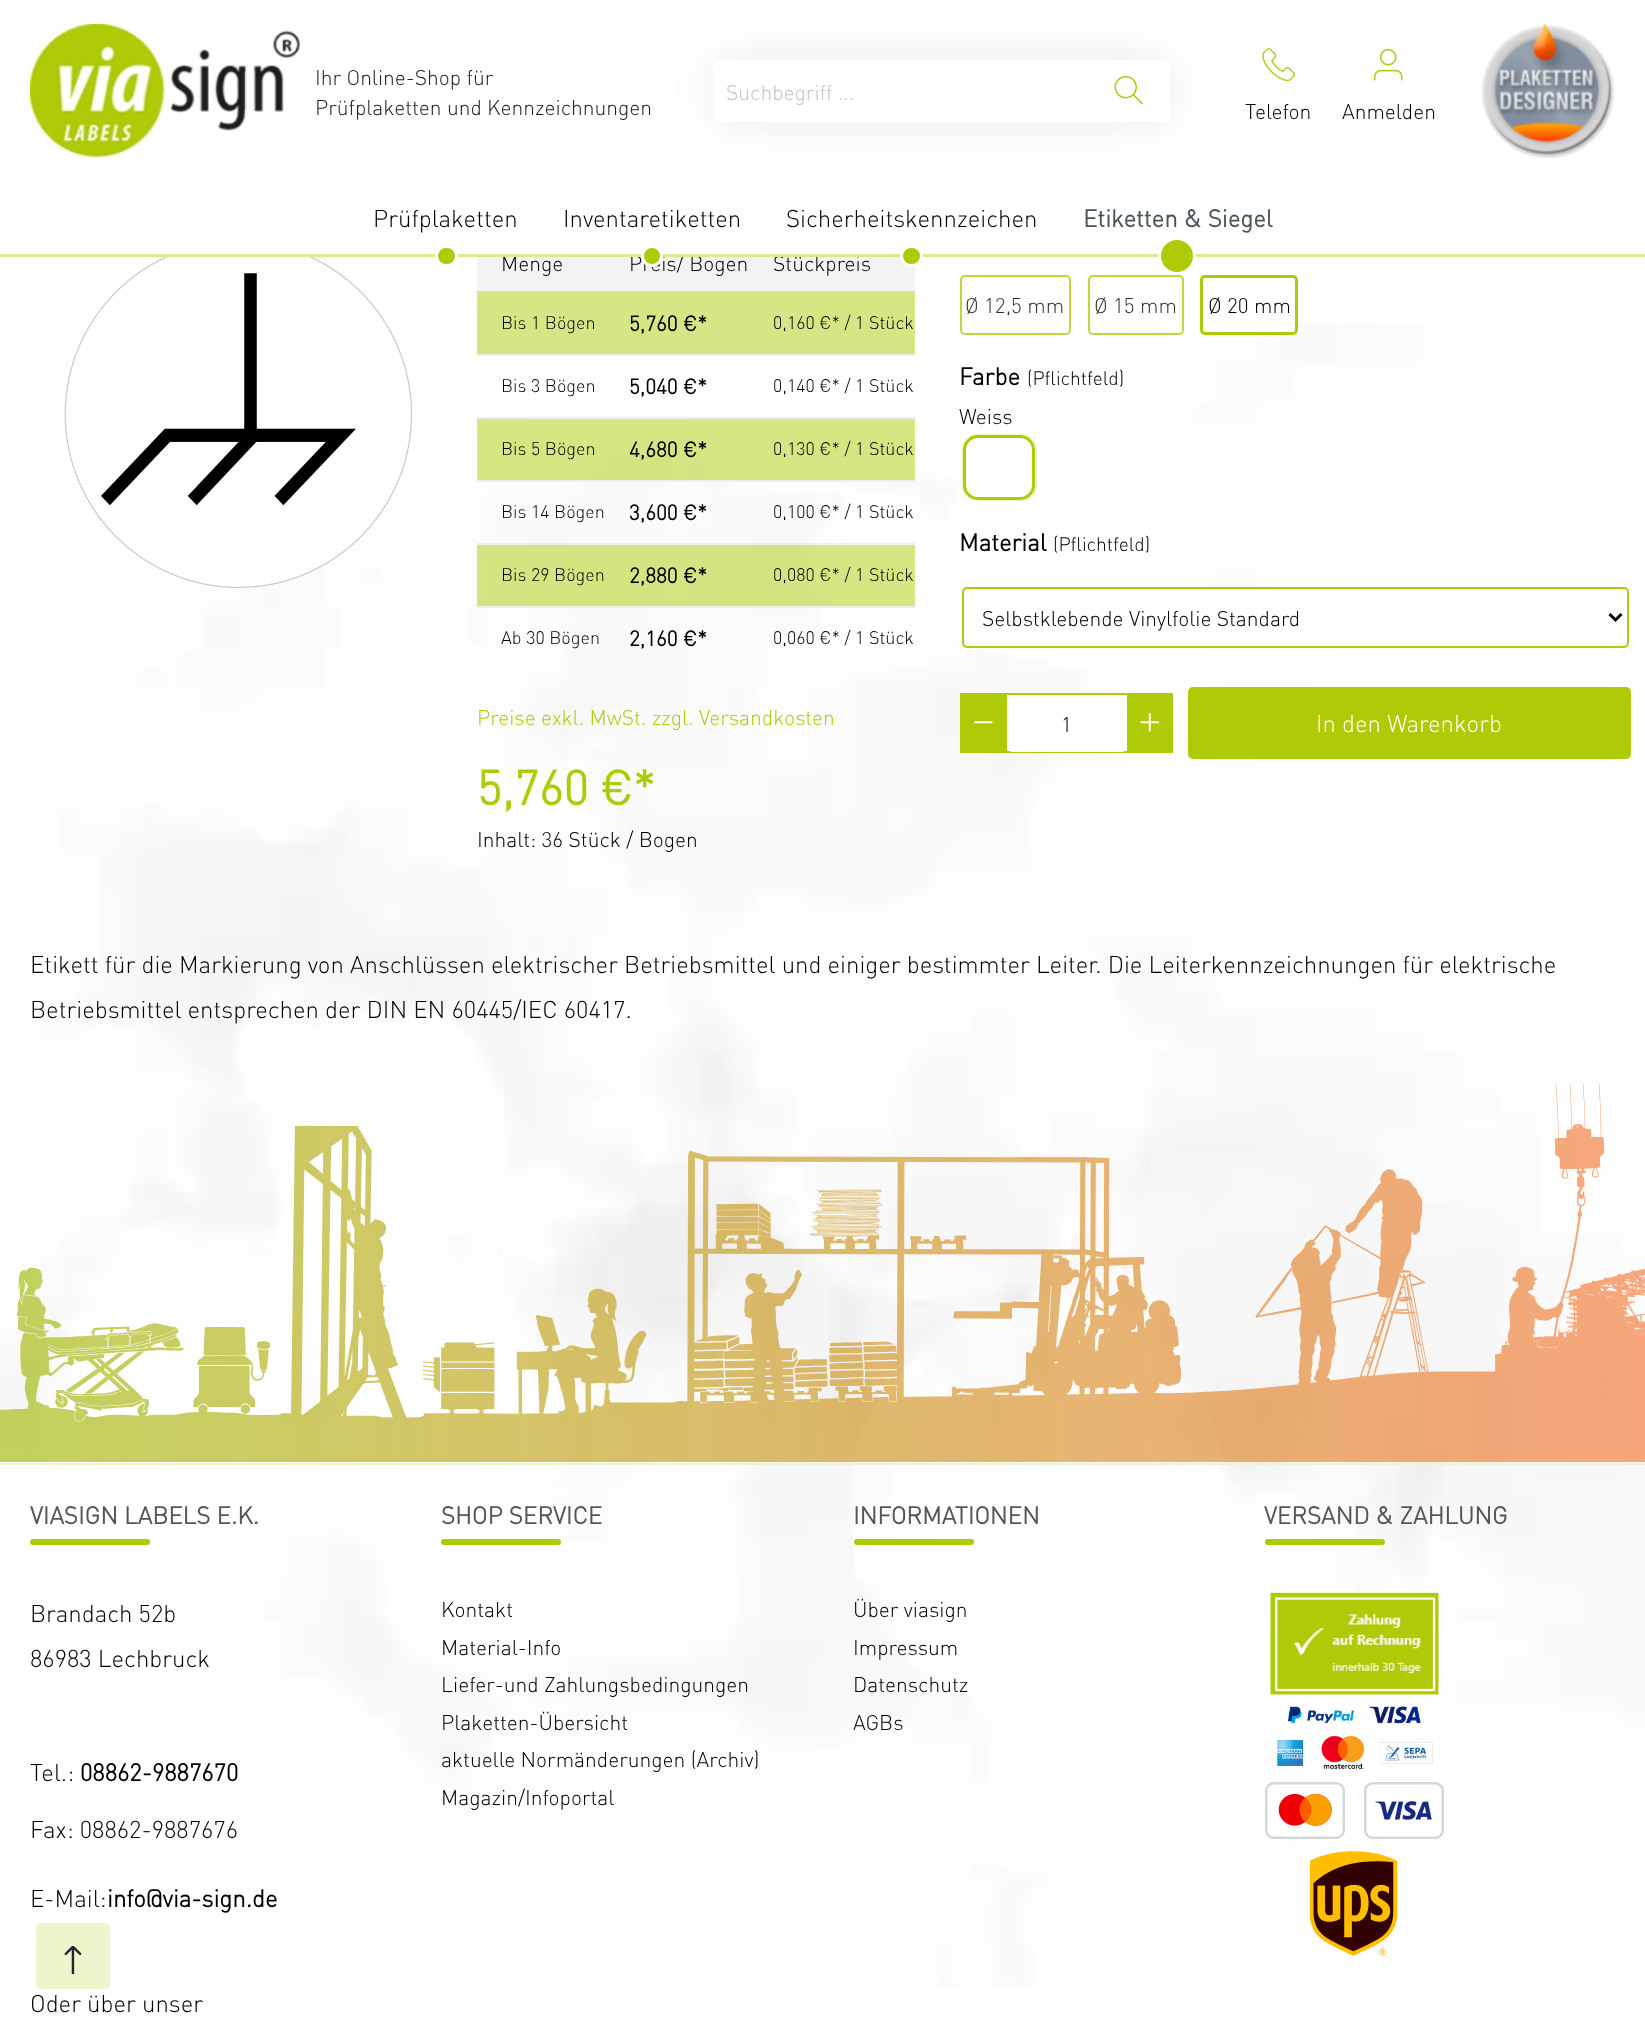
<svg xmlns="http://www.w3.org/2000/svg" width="1645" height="2024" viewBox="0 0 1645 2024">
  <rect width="100%" height="100%" fill="#fff"/>
  <image x="0" y="323" width="1645" height="1663" href="img/1.png"/>
  <image x="30" y="24" width="270" height="134" href="img/2.png"/>
  <path d="M713 60h457v62H713z" fill="#93aba938" filter="blur(25.5px)"/>
  <path d="M718 60H1089V122H718C715 122 713 120 713 117V65C713 62 715 60 718 60Z" fill="#fff"/>
  <path d="M1088 60H1165C1168 60 1170 62 1170 65V117C1170 120 1168 122 1165 122H1088Z" fill="#fff"/>
  <image x="1114" y="75" width="29" height="30" href="img/3.png"/>
  <image x="1262" y="48" width="34" height="34" href="img/4.png"/>
  <image x="1374" y="48" width="29" height="33" href="img/5.png"/>
  <image x="1481" y="23" width="134" height="136" href="img/6.png"/>
  <image x="64" y="257" width="349" height="331" href="img/7.png"/>
  <path d="M477 257h438v34H477z" fill="#f3f3f3"/>
  <path d="M477 291h438v63H477z" fill="#d7e584"/>
  <path d="M477 354h438v2H477z" fill="#eee"/>
  <path d="M477 419h438v61H477z" fill="#afcb0880"/>
  <path d="M477 417h438v2H477z" fill="#eee"/>
  <path d="M477 480h438v2H477z" fill="#eee"/>
  <path d="M477 545h438v61H477z" fill="#afcb0880"/>
  <path d="M477 543h438v2H477z" fill="#eee"/>
  <path d="M477 606h438v2H477z" fill="#eee"/>
  <rect x="961" y="276" width="109" height="58" rx="4" fill="none" stroke="#bfd539" stroke-width="2"/>
  <rect x="1089" y="276" width="94" height="58" rx="4" fill="none" stroke="#bfd539" stroke-width="2"/>
  <rect x="1201.5" y="276.5" width="95" height="57" rx="3.5" fill="#fff" stroke="#afcb08" stroke-width="3"/>
  <rect x="963" y="435" width="73" height="65" rx="14" fill="none" stroke="#eef4cb" stroke-width="2"/>
  <rect x="964" y="436" width="70" height="63" rx="14" fill="#fff" stroke="#eef4cb" stroke-width="2"/>
  <rect x="964.5" y="436.5" width="69" height="62" rx="13.5" fill="none" stroke="#afcb08" stroke-width="3"/>
  <rect x="963" y="588" width="665" height="59" rx="4" fill="#fff" stroke="#afcb08" stroke-width="2"/>
  <path d="M1609.5 614L1615.5 620L1621.5 614" fill="none" stroke="#000" stroke-width="3"/>
  <path d="M961 694h211v58H961z" fill="none" stroke="#afcb08" stroke-width="2"/>
  <path d="M962 695h45v56H962z" fill="#afcb08"/>
  <image x="973" y="721" width="20" height="3" href="img/8.png"/>
  <rect x="1008" y="696" width="118" height="55" rx="4" fill="#fff" stroke="#fff" stroke-width="2"/>
  <path d="M1127 695h44v56H1127z" fill="#afcb08"/>
  <image x="1140" y="712" width="20" height="20" href="img/9.png"/>
  <rect x="1188" y="687" width="443" height="72" rx="5" fill="#afcb08"/>
  <image x="0" y="1084" width="1645" height="378" href="img/10.png"/>
  <path d="M0 1463h1645v2H0z" fill="#eef4cb"/>
  <rect x="30" y="1539" width="120" height="6" rx="3" fill="#afcb08"/>
  <rect x="441" y="1539" width="120" height="6" rx="3" fill="#afcb08"/>
  <rect x="854" y="1539" width="120" height="6" rx="3" fill="#afcb08"/>
  <rect x="1265" y="1539" width="120" height="6" rx="3" fill="#afcb08"/>
  <image x="1270" y="1592" width="169" height="103" href="img/11.png"/>
  <image x="1277" y="1706" width="156" height="63" href="img/12.png"/>
  <image x="1265" y="1782" width="179" height="57" href="img/13.png"/>
  <image x="1310" y="1851" width="88" height="105" href="img/14.png"/>
  <rect x="36" y="1923" width="74" height="66" rx="5" fill="#eef4cb"/>
  <image x="64" y="1946" width="18" height="28" href="img/15.png"/>
  <g font-family="DIN" font-size="21" font-weight="300" fill="#1d1d1b">
    <text x="315" y="85">Ihr Online-Shop für</text>
    <text x="315" y="115">Prüfplaketten und Kennzeichnungen</text>
  </g>
  <text x="726" y="100" font-family="DIN" font-size="21" font-weight="300" fill="#c3c3c3">Suchbegriff ...</text>
  <g font-family="DIN" font-size="21" font-weight="300" fill="#000">
    <text x="1245" y="119">Telefon</text>
    <text x="1342" y="119">Anmelden</text>
  </g>
  <g font-family="DIN" font-size="24" font-weight="300" fill="#000">
    <text x="373" y="227">Prüfplaketten</text>
    <text x="563" y="227">Inventaretiketten</text>
    <text x="786" y="227">Sicherheitskennzeichen</text>
  </g>
  <text x="1083" y="227" font-family="DIN" font-size="24" font-weight="bold" fill="#4a545b">Etiketten &amp; Siegel</text>
  <g font-family="DIN" font-size="21" font-weight="300" fill="#000">
    <text x="501" y="271">Menge</text>
    <text x="629" y="271">Preis/ Bogen</text>
    <text x="773" y="271">Stückpreis</text>
  </g>
  <path d="M0 254h1645v3H0z" fill="#dce892"/>
  <circle cx="1177" cy="256" r="17.5" fill="#afcb08" stroke="#fff" stroke-width="3"/>
  <rect x="901.5" y="246.5" width="20" height="19" rx="9.5" fill="#afcb08" stroke="#fff" stroke-width="3"/>
  <circle cx="652" cy="256" r="9.5" fill="#afcb08" stroke="#fff" stroke-width="3"/>
  <rect x="436.5" y="246.5" width="20" height="19" rx="9.5" fill="#afcb08" stroke="#fff" stroke-width="3"/>
  <text x="501" y="329" font-family="DIN" font-size="18" font-weight="300" fill="#000">Bis 1 Bögen</text>
  <text x="629" y="331" font-family="DIN" font-size="21" font-weight="bold" fill="#000">5,760 €*</text>
  <g font-family="DIN" font-size="18" font-weight="300" fill="#000">
    <text x="773" y="329">0,160 €* / 1 Stück</text>
    <text x="501" y="392">Bis 3 Bögen</text>
  </g>
  <text x="629" y="394" font-family="DIN" font-size="21" font-weight="bold" fill="#000">5,040 €*</text>
  <g font-family="DIN" font-size="18" font-weight="300" fill="#000">
    <text x="773" y="392">0,140 €* / 1 Stück</text>
    <text x="501" y="455">Bis 5 Bögen</text>
  </g>
  <text x="629" y="457" font-family="DIN" font-size="21" font-weight="bold" fill="#000">4,680 €*</text>
  <g font-family="DIN" font-size="18" font-weight="300" fill="#000">
    <text x="773" y="455">0,130 €* / 1 Stück</text>
    <text x="501" y="518">Bis 14 Bögen</text>
  </g>
  <text x="629" y="520" font-family="DIN" font-size="21" font-weight="bold" fill="#000">3,600 €*</text>
  <g font-family="DIN" font-size="18" font-weight="300" fill="#000">
    <text x="773" y="518">0,100 €* / 1 Stück</text>
    <text x="501" y="581">Bis 29 Bögen</text>
  </g>
  <text x="629" y="583" font-family="DIN" font-size="21" font-weight="bold" fill="#000">2,880 €*</text>
  <g font-family="DIN" font-size="18" font-weight="300" fill="#000">
    <text x="773" y="581">0,080 €* / 1 Stück</text>
    <text x="501" y="644">Ab 30 Bögen</text>
  </g>
  <text x="629" y="646" font-family="DIN" font-size="21" font-weight="bold" fill="#000">2,160 €*</text>
  <text x="773" y="644" font-family="DIN" font-size="18" font-weight="300" fill="#000">0,060 €* / 1 Stück</text>
  <text x="477" y="725" font-family="DIN" font-size="21" font-weight="300" fill="#afcb08">Preise exkl. MwSt. zzgl. Versandkosten</text>
  <text x="477" y="805" font-family="DIN" font-size="48" font-weight="bold" fill="#afcb08">5,760 €*</text>
  <text x="477" y="847" font-family="DIN" font-size="21" font-weight="300" fill="#000">Inhalt: 36 Stück / Bogen</text>
  <g font-family="DIN" font-size="21" font-weight="300" fill="#333">
    <text x="965" y="313">Ø 12,5 mm</text>
    <text x="1094" y="313">Ø 15 mm</text>
  </g>
  <text x="1208" y="313" font-family="DIN" font-size="21" font-weight="300" fill="#000">Ø 20 mm</text>
  <text x="959" y="385" font-family="DIN" font-size="24" font-weight="bold" fill="#000">Farbe</text>
  <text x="1027" y="385" font-family="DIN" font-size="19.25" font-weight="300" fill="#000">(Pflichtfeld)</text>
  <text x="959" y="424" font-family="DIN" font-size="21" font-weight="300" fill="#000">Weiss</text>
  <text x="959" y="551" font-family="DIN" font-size="24" font-weight="bold" fill="#000">Material</text>
  <text x="1053" y="551" font-family="DIN" font-size="19.25" font-weight="300" fill="#000">(Pflichtfeld)</text>
  <g font-family="DIN" font-size="21" font-weight="300" fill="#000">
    <text x="982" y="626">Selbstklebende Vinylfolie Standard</text>
    <text x="1061" y="732">1</text>
  </g>
  <text x="1316" y="732" font-family="DIN" font-size="24" font-weight="300" fill="#fff">In den Warenkorb</text>
  <g font-family="DIN" font-size="24" font-weight="300" fill="#000">
    <text x="30" y="973">Etikett für die Markierung von Anschlüssen elektrischer Betriebsmittel und einiger bestimmter Leiter. Die Leiterkennzeichnungen für elektrische</text>
    <text x="30" y="1018">Betriebsmittel entsprechen der DIN EN 60445/IEC 60417.</text>
  </g>
  <text x="30" y="1524" font-family="DIN" font-size="24" font-weight="bold" fill="#565656">VIASIGN LABELS E.K.</text>
  <g font-family="DIN" font-size="24" font-weight="300" fill="#000">
    <text x="30" y="1622">Brandach 52b</text>
    <text x="30" y="1667">86983 Lechbruck</text>
    <text x="30" y="1781">Tel.:</text>
  </g>
  <text x="80" y="1781" font-family="DIN" font-size="24" font-weight="bold" fill="#000">08862-9887670</text>
  <g font-family="DIN" font-size="24" font-weight="300" fill="#000">
    <text x="30" y="1838">Fax: 08862-9887676</text>
    <text x="30" y="1907">E-Mail:</text>
  </g>
  <text x="107" y="1907" font-family="DIN" font-size="24" font-weight="bold" fill="#000">info@via-sign.de</text>
  <text x="30" y="2012" font-family="DIN" font-size="24" font-weight="300" fill="#000">Oder über unser</text>
  <text x="441" y="1524" font-family="DIN" font-size="24" font-weight="bold" fill="#565656">SHOP SERVICE</text>
  <g font-family="DIN" font-size="21" font-weight="300" fill="#000">
    <text x="441" y="1617">Kontakt</text>
    <text x="441" y="1655">Material-Info</text>
    <text x="441" y="1692">Liefer-und Zahlungsbedingungen</text>
    <text x="441" y="1730">Plaketten-Übersicht</text>
    <text x="441" y="1767">aktuelle Normänderungen (Archiv)</text>
    <text x="441" y="1805">Magazin/Infoportal</text>
  </g>
  <text x="853" y="1524" font-family="DIN" font-size="24" font-weight="bold" fill="#565656">INFORMATIONEN</text>
  <g font-family="DIN" font-size="21" font-weight="300" fill="#000">
    <text x="853" y="1617">Über viasign</text>
    <text x="853" y="1655">Impressum</text>
    <text x="853" y="1692">Datenschutz</text>
    <text x="853" y="1730">AGBs</text>
  </g>
  <text x="1264" y="1524" font-family="DIN" font-size="24" font-weight="bold" fill="#565656">VERSAND &amp; ZAHLUNG</text>
</svg>
